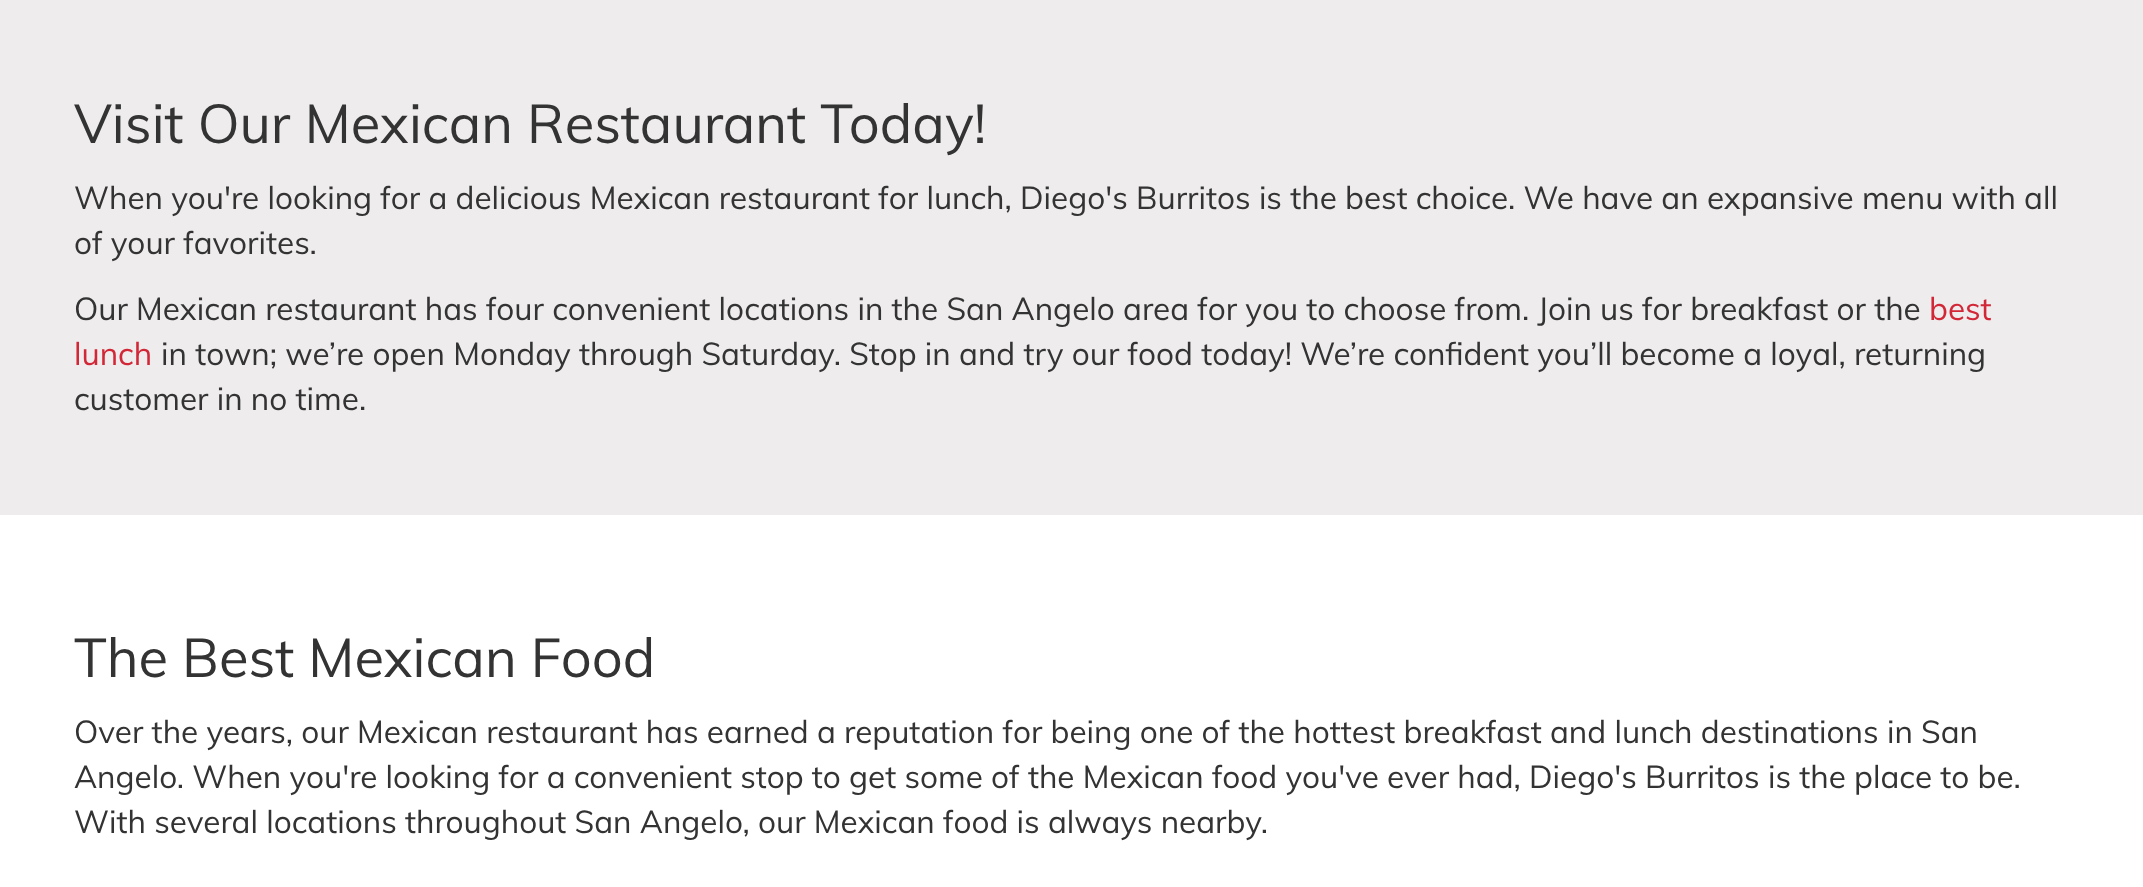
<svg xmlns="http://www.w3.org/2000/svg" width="2143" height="887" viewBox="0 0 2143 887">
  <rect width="100%" height="100%" fill="#fff"/>
  <path d="M0 0h2143v515H0z" fill="#eeeced"/>
  <text x="74" y="143" font-family="Muli" font-size="54.25" fill="#333">Visit Our Mexican Restaurant Today!</text>
  <g font-family="Muli" font-size="31.5" fill="#333">
    <text x="74" y="209">When you're looking for a delicious Mexican restaurant for lunch, Diego's Burritos is the best choice. We have an expansive menu with all</text>
    <text x="74" y="254">of your favorites.</text>
    <text x="74" y="320">Our Mexican restaurant has four convenient locations in the San Angelo area for you to choose from. Join us for breakfast or the</text>
  </g>
  <g font-family="Muli" font-size="31.5" fill="#d22737">
    <text x="1929" y="320">best</text>
    <text x="74" y="365">lunch</text>
  </g>
  <g font-family="Muli" font-size="31.5" fill="#333">
    <text x="161" y="365">in town; we’re open Monday through Saturday. Stop in and try our food today! We’re confident you’ll become a loyal, returning</text>
    <text x="74" y="410">customer in no time.</text>
  </g>
  <text x="74" y="677" font-family="Muli" font-size="54.25" fill="#333">The Best Mexican Food</text>
  <g font-family="Muli" font-size="31.5" fill="#333">
    <text x="74" y="743">Over the years, our Mexican restaurant has earned a reputation for being one of the hottest breakfast and lunch destinations in San</text>
    <text x="74" y="788">Angelo. When you're looking for a convenient stop to get some of the Mexican food you've ever had, Diego's Burritos is the place to be.</text>
    <text x="74" y="833">With several locations throughout San Angelo, our Mexican food is always nearby.</text>
  </g>
</svg>
